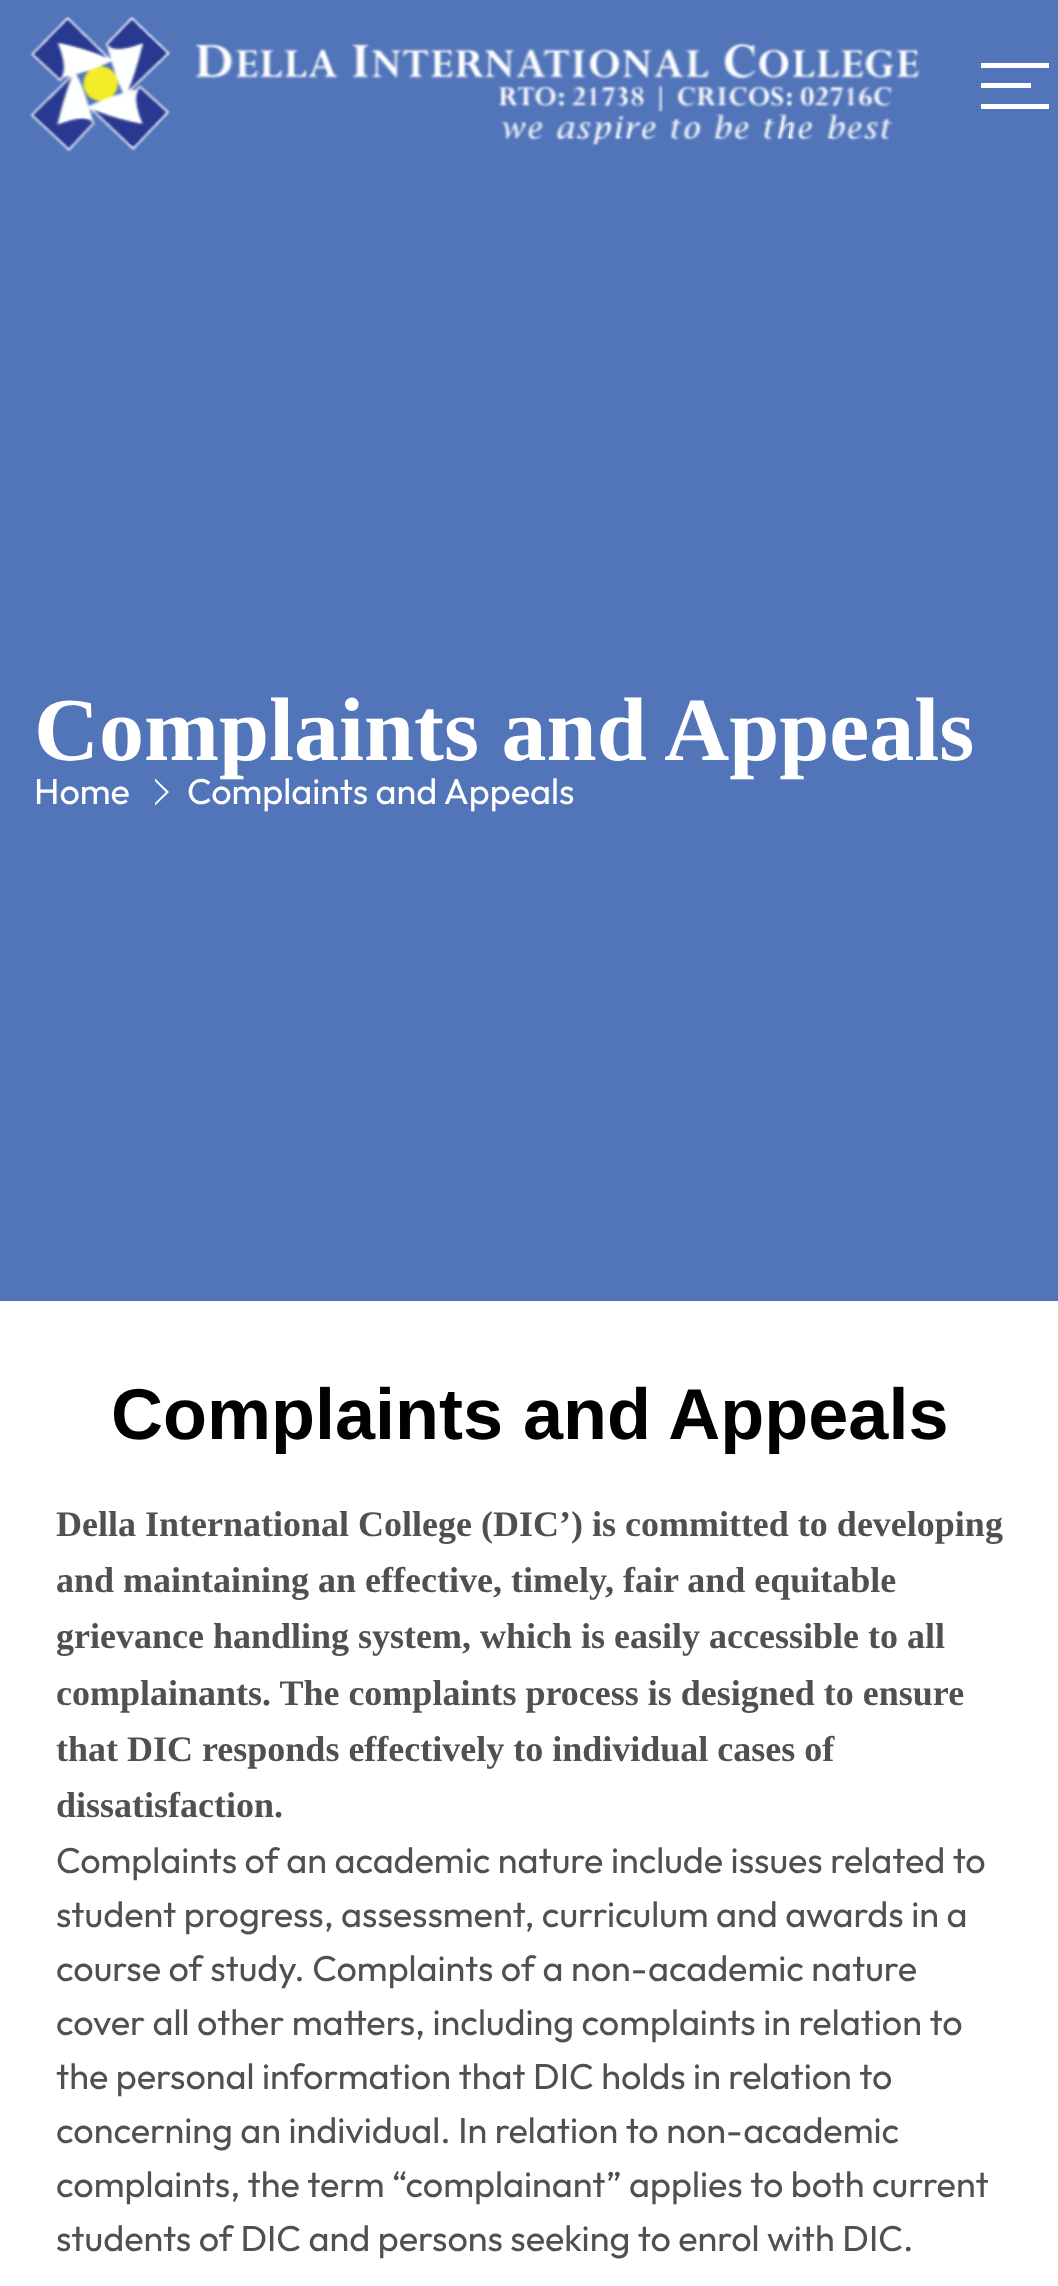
<svg xmlns="http://www.w3.org/2000/svg" width="1058" height="2286" viewBox="0 0 1058 2286">
  <rect width="100%" height="100%" fill="#fff"/>
  <path d="M0 0h1058v1301H0z" fill="#5275ba"/>
  <image x="29" y="16" width="891" height="136" href="img/1.png"/>
  <path d="M981 63h68v5H981z" fill="#fff"/>
  <path d="M981 83h50v5H981z" fill="#fff"/>
  <path d="M981 104h68v5H981z" fill="#fff"/>
  <path d="M166 792L155 803V805.5L169 792L155 778.5V781Z" fill="#fff"/>
  <text x="34" y="760" font-family="Liberation Serif" font-size="90" font-weight="bold" fill="#fff">Complaints and Appeals</text>
  <g font-family="Outfit" font-size="36" font-weight="100" fill="#fff">
    <text x="34" y="804">Home</text>
    <text x="187" y="804">Complaints and Appeals</text>
  </g>
  <text x="111" y="1439" font-family="Liberation Sans" font-size="72" font-weight="bold" fill="#000">Complaints and Appeals</text>
  <g font-family="Liberation Serif" font-size="36" font-weight="bold" fill="#505050">
    <text x="56" y="1536">Della International College (DIC’) is committed to developing</text>
    <text x="56" y="1592">and maintaining an effective, timely, fair and equitable</text>
    <text x="56" y="1648">grievance handling system, which is easily accessible to all</text>
    <text x="56" y="1705">complainants. The complaints process is designed to ensure</text>
    <text x="56" y="1761">that DIC responds effectively to individual cases of</text>
    <text x="56" y="1817">dissatisfaction.</text>
  </g>
  <g font-family="Outfit" font-size="36" font-weight="100" fill="#505050">
    <text x="56" y="1873">Complaints of an academic nature include issues related to</text>
    <text x="56" y="1927">student progress, assessment, curriculum and awards in a</text>
    <text x="56" y="1981">course of study. Complaints of a non-academic nature</text>
    <text x="56" y="2035">cover all other matters, including complaints in relation to</text>
    <text x="56" y="2089">the personal information that DIC holds in relation to</text>
    <text x="56" y="2143">concerning an individual. In relation to non-academic</text>
    <text x="56" y="2197">complaints, the term “complainant” applies to both current</text>
    <text x="56" y="2251">students of DIC and persons seeking to enrol with DIC.</text>
  </g>
</svg>
